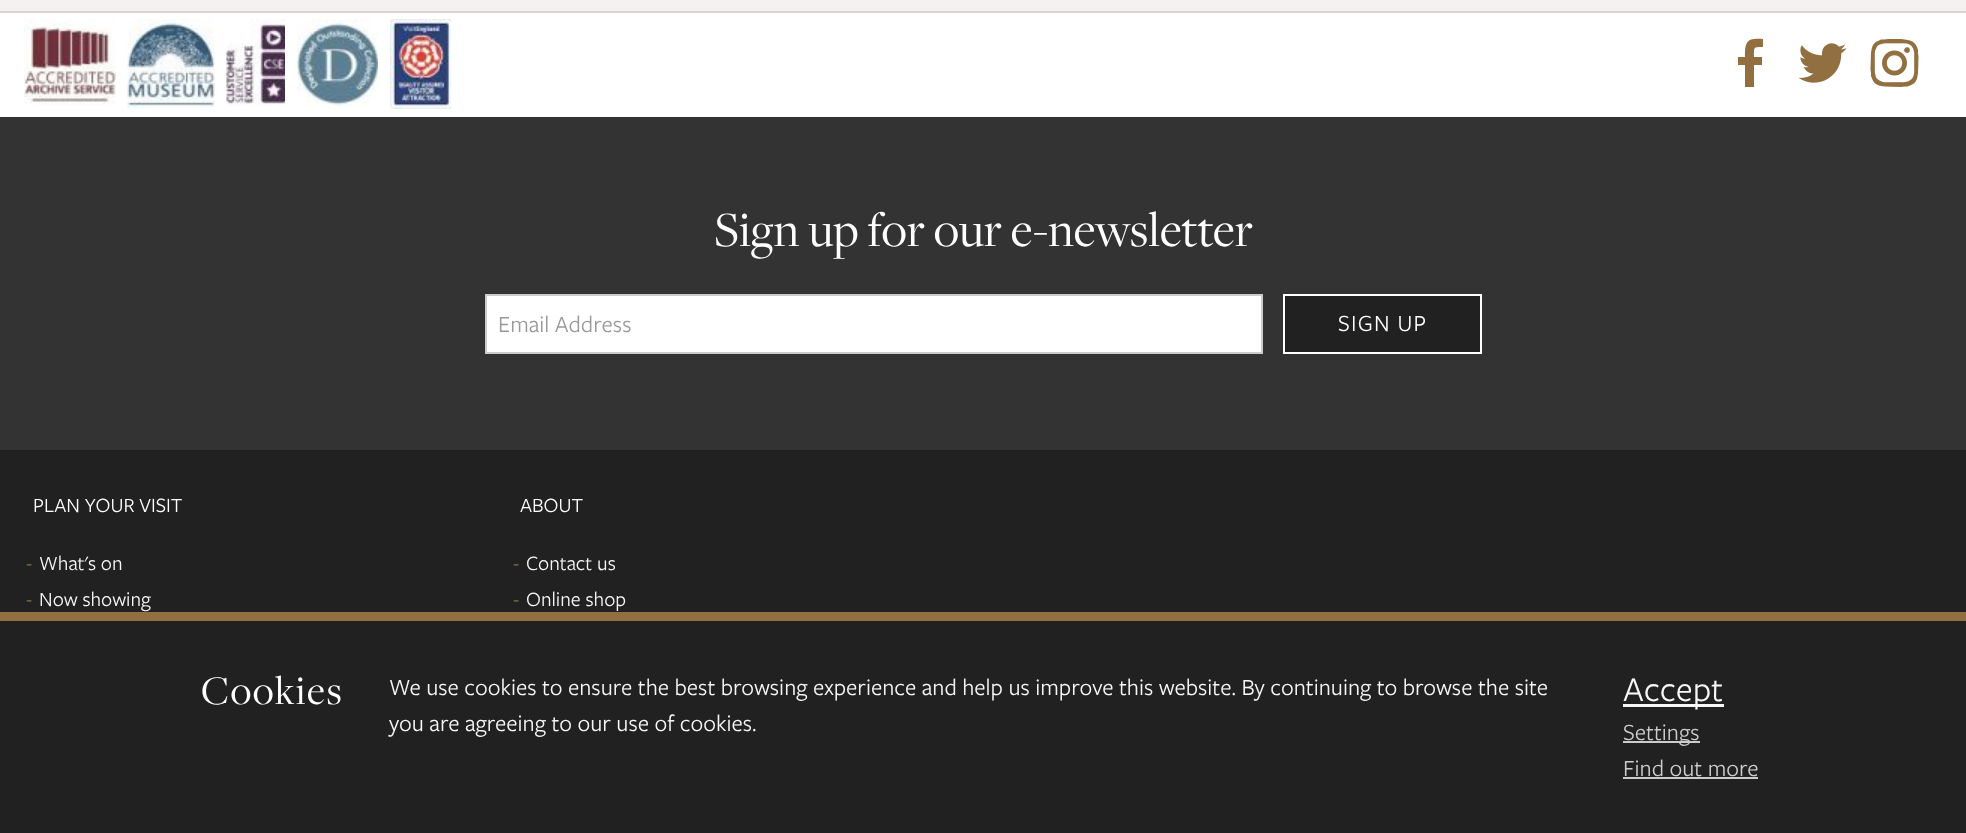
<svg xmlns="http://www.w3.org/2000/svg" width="1966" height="833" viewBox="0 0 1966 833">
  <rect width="100%" height="100%" fill="#fff"/>
  <path d="M0 0h1966v11H0z" fill="#f4f2f0"/>
  <path d="M0 11h1966v2H0z" fill="#ddd5cc"/>
  <image x="24" y="19" width="92" height="86" href="img/1.png"/>
  <image x="127" y="19" width="88" height="90" href="img/2.png"/>
  <image x="226" y="19" width="59" height="87" href="img/3.png"/>
  <image x="297" y="19" width="81" height="90" href="img/4.png"/>
  <image x="390" y="19" width="62" height="90" href="img/5.png"/>
  <path d="M1762 65V57H1754C1754 47 1753 47 1763 47V39C1747 38 1745 41 1745 57H1738V65H1745V87H1754V65Z" fill="#916f40"/>
  <image x="1798" y="43" width="49" height="40" href="img/6.png"/>
  <image x="1870" y="39" width="49" height="48" href="img/7.png"/>
  <path d="M0 117h1966v333H0z" fill="#333"/>
  <path d="M486 295h776v58H486z" fill="#fff" stroke="#ccc" stroke-width="2"/>
  <path d="M1284 295h197v58H1284z" fill="#212122" stroke="#fff" stroke-width="2"/>
  <path d="M0 450h1966v162H0z" fill="#212121"/>
  <path d="M0 621h1966v212H0z" fill="#212121"/>
  <path d="M0 612h1966v9H0z" fill="#916f40"/>
  <path d="M1623 704h101v3H1623z" fill="#f7f7f7"/>
  <path d="M1623 741h77v2H1623z" fill="#ccc"/>
  <path d="M1623 777h135v2H1623z" fill="#ccc"/>
  <text x="714" y="246" font-family="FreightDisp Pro" font-size="51" fill="#fff">Sign up for our e-newsletter</text>
  <text x="498" y="332" font-family="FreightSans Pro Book" font-size="24" fill="#999">Email Address</text>
  <text x="1338" y="331" font-family="FreightSans Pro Book" font-size="24" letter-spacing="1.25" fill="#fff">SIGN UP</text>
  <text x="33" y="512" font-family="FreightSans Pro Book" font-size="21" fill="#fff">PLAN YOUR VISIT</text>
  <text x="26" y="570" font-family="FreightSans Pro Book" font-size="21" fill="#916f40">-</text>
  <text x="39" y="570" font-family="FreightSans Pro Book" font-size="21" fill="#f7f7f7">What's on</text>
  <text x="26" y="606" font-family="FreightSans Pro Book" font-size="21" fill="#916f40">-</text>
  <text x="39" y="606" font-family="FreightSans Pro Book" font-size="21" fill="#f7f7f7">Now showing</text>
  <text x="520" y="512" font-family="FreightSans Pro Book" font-size="21" fill="#fff">ABOUT</text>
  <text x="513" y="570" font-family="FreightSans Pro Book" font-size="21" fill="#916f40">-</text>
  <text x="526" y="570" font-family="FreightSans Pro Book" font-size="21" fill="#f7f7f7">Contact us</text>
  <text x="513" y="606" font-family="FreightSans Pro Book" font-size="21" fill="#916f40">-</text>
  <text x="526" y="606" font-family="FreightSans Pro Book" font-size="21" fill="#f7f7f7">Online shop</text>
  <text x="201" y="704" font-family="FreightDisp Pro" font-size="42" letter-spacing="1.5" fill="#fff">Cookies</text>
  <g font-family="FreightSans Pro Book" font-size="24" fill="#f7f7f7">
    <text x="389" y="695">We use cookies to ensure the best browsing experience and help us improve this website. By continuing to browse the site</text>
    <text x="389" y="731">you are agreeing to our use of cookies.</text>
  </g>
  <text x="1623" y="701" font-family="FreightSans Pro Book" font-size="36" fill="#f7f7f7">Accept</text>
  <g font-family="FreightSans Pro Book" font-size="24" fill="#ccc">
    <text x="1623" y="740">Settings</text>
    <text x="1623" y="776">Find out more</text>
  </g>
</svg>
